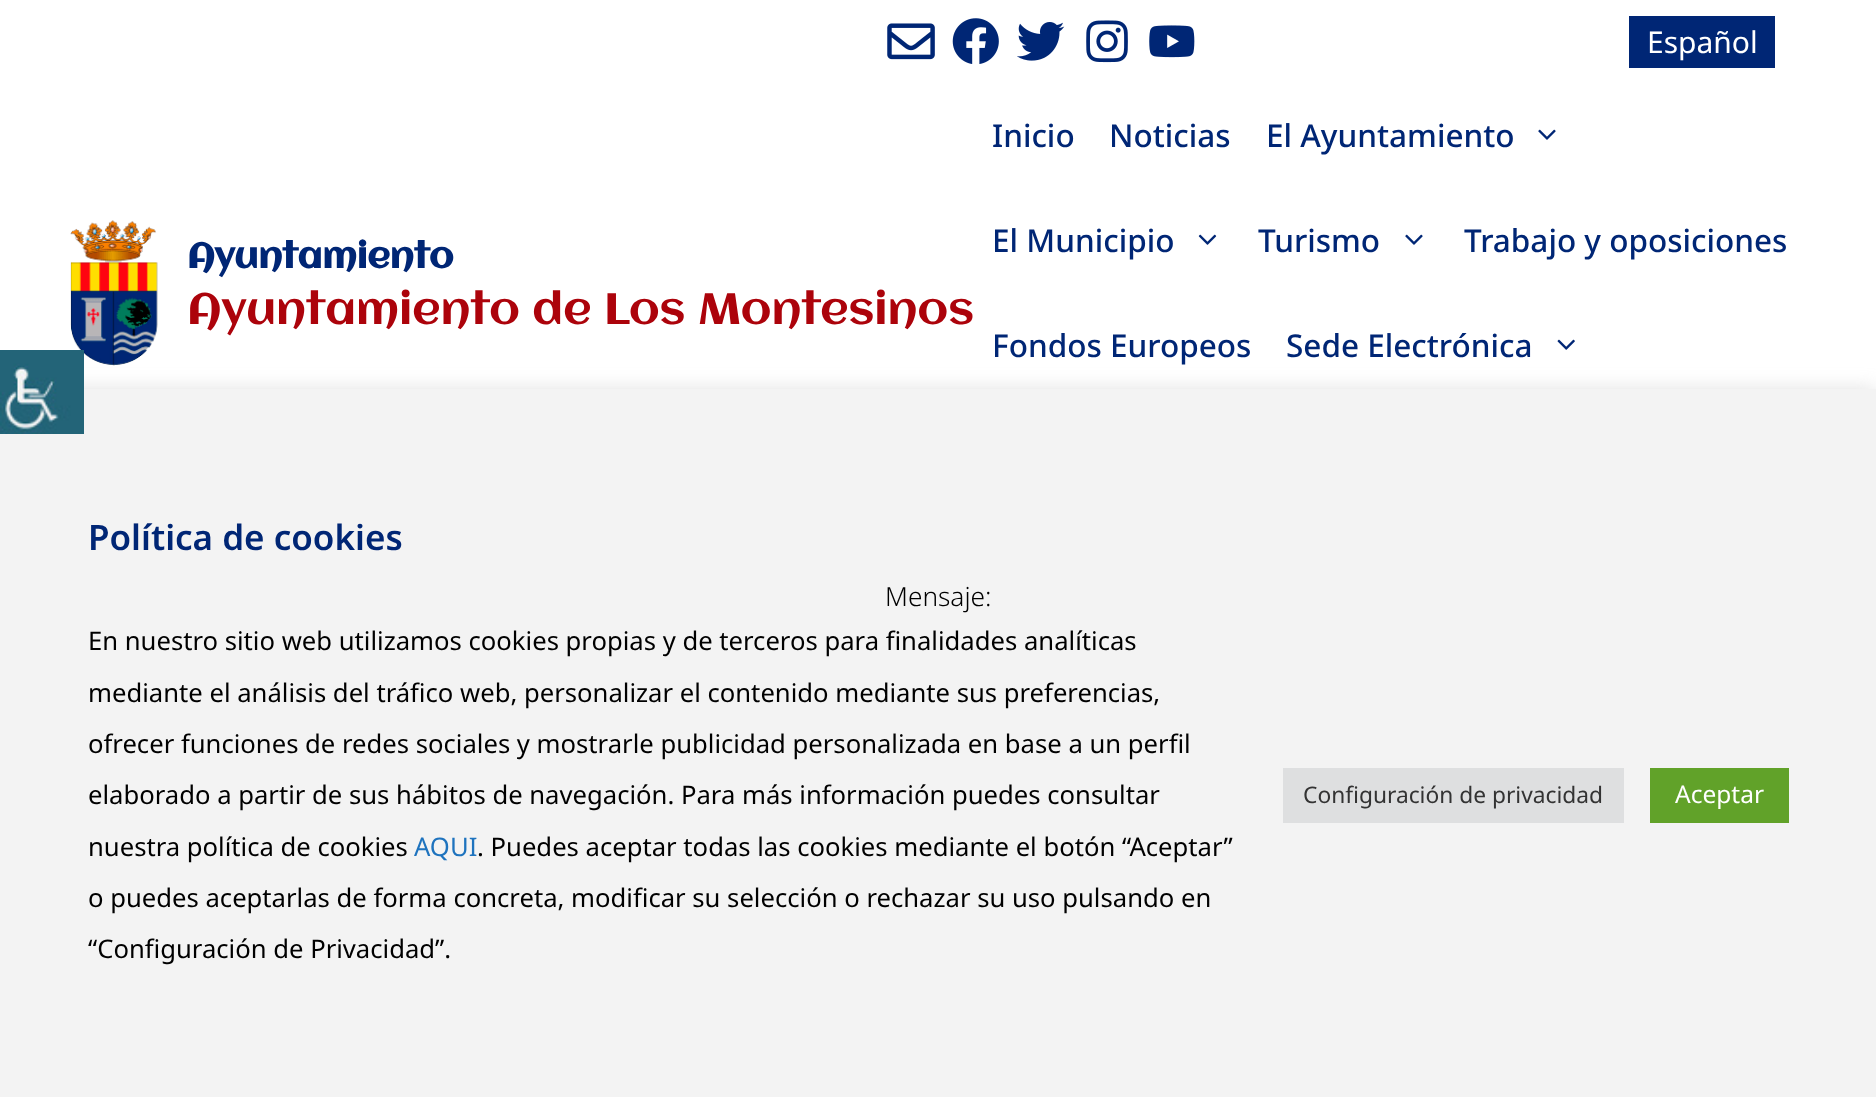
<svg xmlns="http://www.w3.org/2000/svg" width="1876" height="1097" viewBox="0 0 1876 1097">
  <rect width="100%" height="100%" fill="#fff"/>
  <image x="887" y="23" width="48" height="37" href="img/1.png"/>
  <image x="952" y="18" width="47" height="46" href="img/2.png"/>
  <image x="1017" y="22" width="48" height="39" href="img/3.png"/>
  <image x="1086" y="20" width="42" height="43" href="img/4.png"/>
  <image x="1149" y="25" width="46" height="33" href="img/5.png"/>
  <path d="M1629 16h146v52H1629z" fill="#002675"/>
  <image x="70" y="220" width="88" height="146" href="img/6.png"/>
  <image x="1538" y="129" width="18" height="11" href="img/7.png"/>
  <image x="1198" y="234" width="19" height="11" href="img/8.png"/>
  <image x="1405" y="234" width="18" height="11" href="img/7.png"/>
  <image x="1557" y="339" width="18" height="11" href="img/9.png"/>
  <path d="M0 387h1876v709H0z" fill="#acabab4d" filter="blur(9px)"/>
  <path d="M0 389h1876v708H0z" fill="#f3f3f3"/>
  <image x="0" y="350" width="84" height="84" href="img/10.png"/>
  <path d="M1283 768h341v55H1283z" fill="#dedfe0"/>
  <path d="M1650 768h139v55H1650z" fill="#61a229"/>
  <text x="1647" y="53" font-family="Noto Sans" font-size="30" fill="#fff">Español</text>
  <text x="187" y="268" font-family="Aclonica" font-size="35" font-weight="bold" fill="#002675">Ayuntamiento</text>
  <text x="187" y="324" font-family="Aclonica" font-size="43.75" fill="#ac030b">Ayuntamiento de Los Montesinos</text>
  <g font-family="Noto Sans" font-size="31.5" font-weight="500" fill="#002675">
    <text x="992" y="147">Inicio</text>
    <text x="1109" y="147">Noticias</text>
    <text x="1266" y="147">El Ayuntamiento</text>
    <text x="992" y="252">El Municipio</text>
    <text x="1258" y="252">Turismo</text>
    <text x="1464" y="252">Trabajo y oposiciones</text>
    <text x="992" y="357">Fondos Europeos</text>
    <text x="1286" y="357">Sede Electrónica</text>
  </g>
  <text x="88" y="550" font-family="Noto Sans" font-size="35" font-weight="600" fill="#002675">Política de cookies</text>
  <text x="885" y="606" font-family="Noto Sans" font-size="26.25" font-weight="300" fill="#000">Mensaje:</text>
  <g font-family="Noto Sans" font-size="25.65" fill="#000">
    <text x="88" y="650">En nuestro sitio web utilizamos cookies propias y de terceros para finalidades analíticas</text>
    <text x="88" y="702">mediante el análisis del tráfico web, personalizar el contenido mediante sus preferencias,</text>
    <text x="88" y="753">ofrecer funciones de redes sociales y mostrarle publicidad personalizada en base a un perfil</text>
    <text x="88" y="804">elaborado a partir de sus hábitos de navegación. Para más información puedes consultar</text>
    <text x="88" y="856">nuestra política de cookies</text>
  </g>
  <text x="414" y="856" font-family="Noto Sans" font-size="25.65" fill="#1e73be">AQUI</text>
  <g font-family="Noto Sans" font-size="25.65" fill="#000">
    <text x="477" y="856">. Puedes aceptar todas las cookies mediante el botón “Aceptar”</text>
    <text x="88" y="907">o puedes aceptarlas de forma concreta, modificar su selección o rechazar su uso pulsando en</text>
    <text x="88" y="958">“Configuración de Privacidad”.</text>
  </g>
  <text x="1303" y="803" font-family="Noto Sans" font-size="22.75" fill="#333">Configuración de privacidad</text>
  <text x="1675" y="803" font-family="Noto Sans" font-size="24.5" fill="#fff">Aceptar</text>
</svg>
